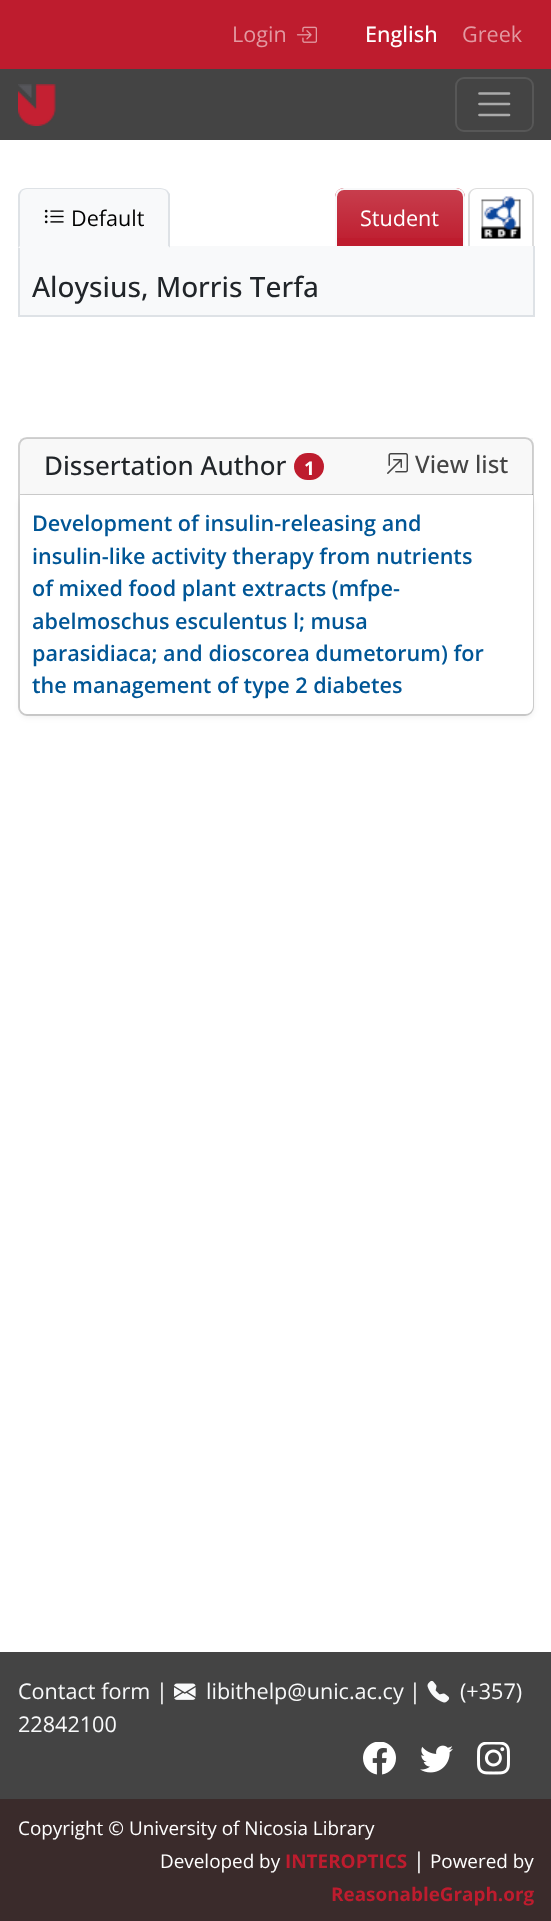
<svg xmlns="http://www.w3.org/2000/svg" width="551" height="1921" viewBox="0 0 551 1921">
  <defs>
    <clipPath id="clip1"><path d="M344 188H456C461 188 465 192 465 197V248H335V197C335 192 339 188 344 188Z"/></clipPath>
    <linearGradient id="g1" gradientUnits="userSpaceOnUse" x1="400" y1="189" x2="400" y2="246"><stop offset="0" stop-color="#fff" stop-opacity="0.15"/><stop offset="1" stop-color="#fff" stop-opacity="0"/></linearGradient>
  </defs>
  <rect width="100%" height="100%" fill="#fff"/>
  <path d="M0 0h551v69H0z" fill="#be1c2e"/>
  <image x="296" y="26" width="21" height="17" href="img/1.png"/>
  <path d="M0 69h551v71H0z" fill="#444"/>
  <image x="18" y="84" width="38" height="42" href="img/2.png"/>
  <rect x="456" y="78" width="77" height="53" rx="8" fill="none" stroke="#575757" stroke-width="2"/>
  <path d="M479.5 93.5H509M479.5 104H509M479.5 115H509" fill="none" stroke="#ababab" stroke-width="2.7" stroke-linecap="round"/>
  <path d="M20 246h513v69H20z" fill="#f8f9fa"/>
  <path d="M533 246h2v71H533z" fill="#dee2e6"/>
  <path d="M18 315h516v2H18z" fill="#dee2e6"/>
  <path d="M18 246h2v71H18z" fill="#dee2e6"/>
  <path d="M27 188H161C166 188 170 192 170 197V248H18V197C18 192 22 188 27 188Z" fill="#f8f9fa"/>
  <path d="M27 188C25 188 22 189 21 190L22 191C23 190 25 189 27 189H160C163 189 165 190 166 191L167 190C165 189 162 188 160 188Z" fill="#dee2e6"/>
  <path d="M167 190L170 194V248L168 246V196C168 194 167 192 166 191Z" fill="#dee2e6"/>
  <path d="M170 248L168 246H20L18 248Z" fill="#f8f9fa"/>
  <path d="M18 248L20 246V196C20 194 21 192 22 191L21 190C19 192 18 194 18 196Z" fill="#dee2e6"/>
  <image x="44" y="209" width="20" height="15" href="img/3.png"/>
  <path d="M344 188H456C461 188 465 192 465 197V248H335V197C335 192 339 188 344 188Z" fill="#be1c2e"/>
  <g clip-path="url(#clip1)">
    <path d="M335 189h130v49H335z" fill="url(#g1)"/>
  </g>
  <path d="M344 189H456C460.5 189 464 192.5 464 197V247H336V197C336 192.5 339.5 189 344 189Z" fill="none" stroke="#f8f9fa" stroke-width="2"/>
  <path d="M477 188H525C530 188 534 192 534 196V246H468V196C468 192 472 188 477 188ZM477 189H525C529 189 532 192 532 196V246H470V196C470 192 473 189 477 189Z" fill="#ddd" fill-rule="evenodd"/>
  <image x="481" y="196" width="40" height="43" href="img/4.png"/>
  <rect x="19" y="438" width="514" height="277" rx="8" fill="none" stroke="#d2d2d2" stroke-width="2"/>
  <path d="M20 438h513v57H20z" fill="#21252908"/>
  <path d="M20 494h513v1H20z" fill="#0000002e"/>
  <rect x="294" y="453" width="30" height="27" rx="13.5" fill="#be1c2e"/>
  <image x="387" y="453" width="21" height="21" href="img/5.png"/>
  <rect x="20" y="498" width="513" height="219" rx="8" fill="#00000012" filter="blur(3px)"/>
  <path d="M20 495H533V706C533 710.5 529.5 714 525 714H28C23.5 714 20 710.5 20 706Z" fill="#fff"/>
  <path d="M0 1652h551v147H0z" fill="#444"/>
  <image x="174" y="1683" width="22" height="17" href="img/6.png"/>
  <image x="427" y="1680" width="23" height="23" href="img/7.png"/>
  <image x="363" y="1742" width="33" height="33" href="img/8.png"/>
  <image x="420" y="1745" width="33" height="28" href="img/9.png"/>
  <image x="477" y="1742" width="33" height="33" href="img/10.png"/>
  <path d="M0 1799h551v122H0z" fill="#3a2b2b"/>
  <text x="232" y="42" font-family="Open Sans" font-size="21.6" fill="#e299a1">Login</text>
  <text x="365" y="42" font-family="Open Sans" font-size="21.6" font-weight="500" fill="#fff">English</text>
  <text x="462" y="42" font-family="Open Sans" font-size="21.6" fill="#e299a1">Greek</text>
  <text x="71" y="226" font-family="Open Sans" font-size="21.6" fill="#000">Default</text>
  <text x="360" y="226" font-family="Open Sans" font-size="21.6" fill="#fff">Student</text>
  <text x="32" y="297" font-family="Open Sans" font-size="28" font-weight="500" fill="#212529">Aloysius, Morris Terfa</text>
  <text x="44" y="475" font-family="Open Sans" font-size="26" font-weight="500" fill="#212529">Dissertation Author</text>
  <text x="304" y="475" font-family="Open Sans" font-size="19" font-weight="bold" fill="#fff">1</text>
  <text x="415" y="473" font-family="Open Sans" font-size="24" font-weight="500" fill="#444">View list</text>
  <g font-family="Open Sans" font-size="21.6" font-weight="600" fill="#005696">
    <text x="32" y="531">Development of insulin-releasing and</text>
    <text x="32" y="564">insulin-like activity therapy from nutrients</text>
    <text x="32" y="596">of mixed food plant extracts (mfpe-</text>
    <text x="32" y="629">abelmoschus esculentus l; musa</text>
    <text x="32" y="661">parasidiaca; and dioscorea dumetorum) for</text>
    <text x="32" y="693">the management of type 2 diabetes</text>
  </g>
  <text x="18" y="1699" font-family="Open Sans" font-size="21.6" fill="#f8f9fa">Contact form</text>
  <text x="156" y="1699" font-family="Open Sans" font-size="21.6" fill="#fff">|</text>
  <text x="206" y="1699" font-family="Open Sans" font-size="21.6" fill="#f8f9fa">libithelp@unic.ac.cy</text>
  <text x="409" y="1699" font-family="Open Sans" font-size="21.6" fill="#fff">|</text>
  <g font-family="Open Sans" font-size="21.6" fill="#f8f9fa">
    <text x="460" y="1699">(+357)</text>
    <text x="18" y="1732">22842100</text>
  </g>
  <g font-family="Open Sans" font-size="18.9" fill="#fff">
    <text x="18" y="1835">Copyright © University of Nicosia Library</text>
    <text x="160" y="1868">Developed by</text>
  </g>
  <text x="285" y="1868" font-family="Open Sans" font-size="18.9" font-weight="bold" fill="#be1c2e">INTEROPTICS</text>
  <text x="413" y="1868" font-family="Open Sans" font-size="21.6" fill="#fff">|</text>
  <text x="430" y="1868" font-family="Open Sans" font-size="18.9" fill="#fff">Powered by</text>
  <text x="331" y="1901" font-family="Open Sans" font-size="18.9" font-weight="bold" fill="#be1c2e">ReasonableGraph.org</text>
</svg>
